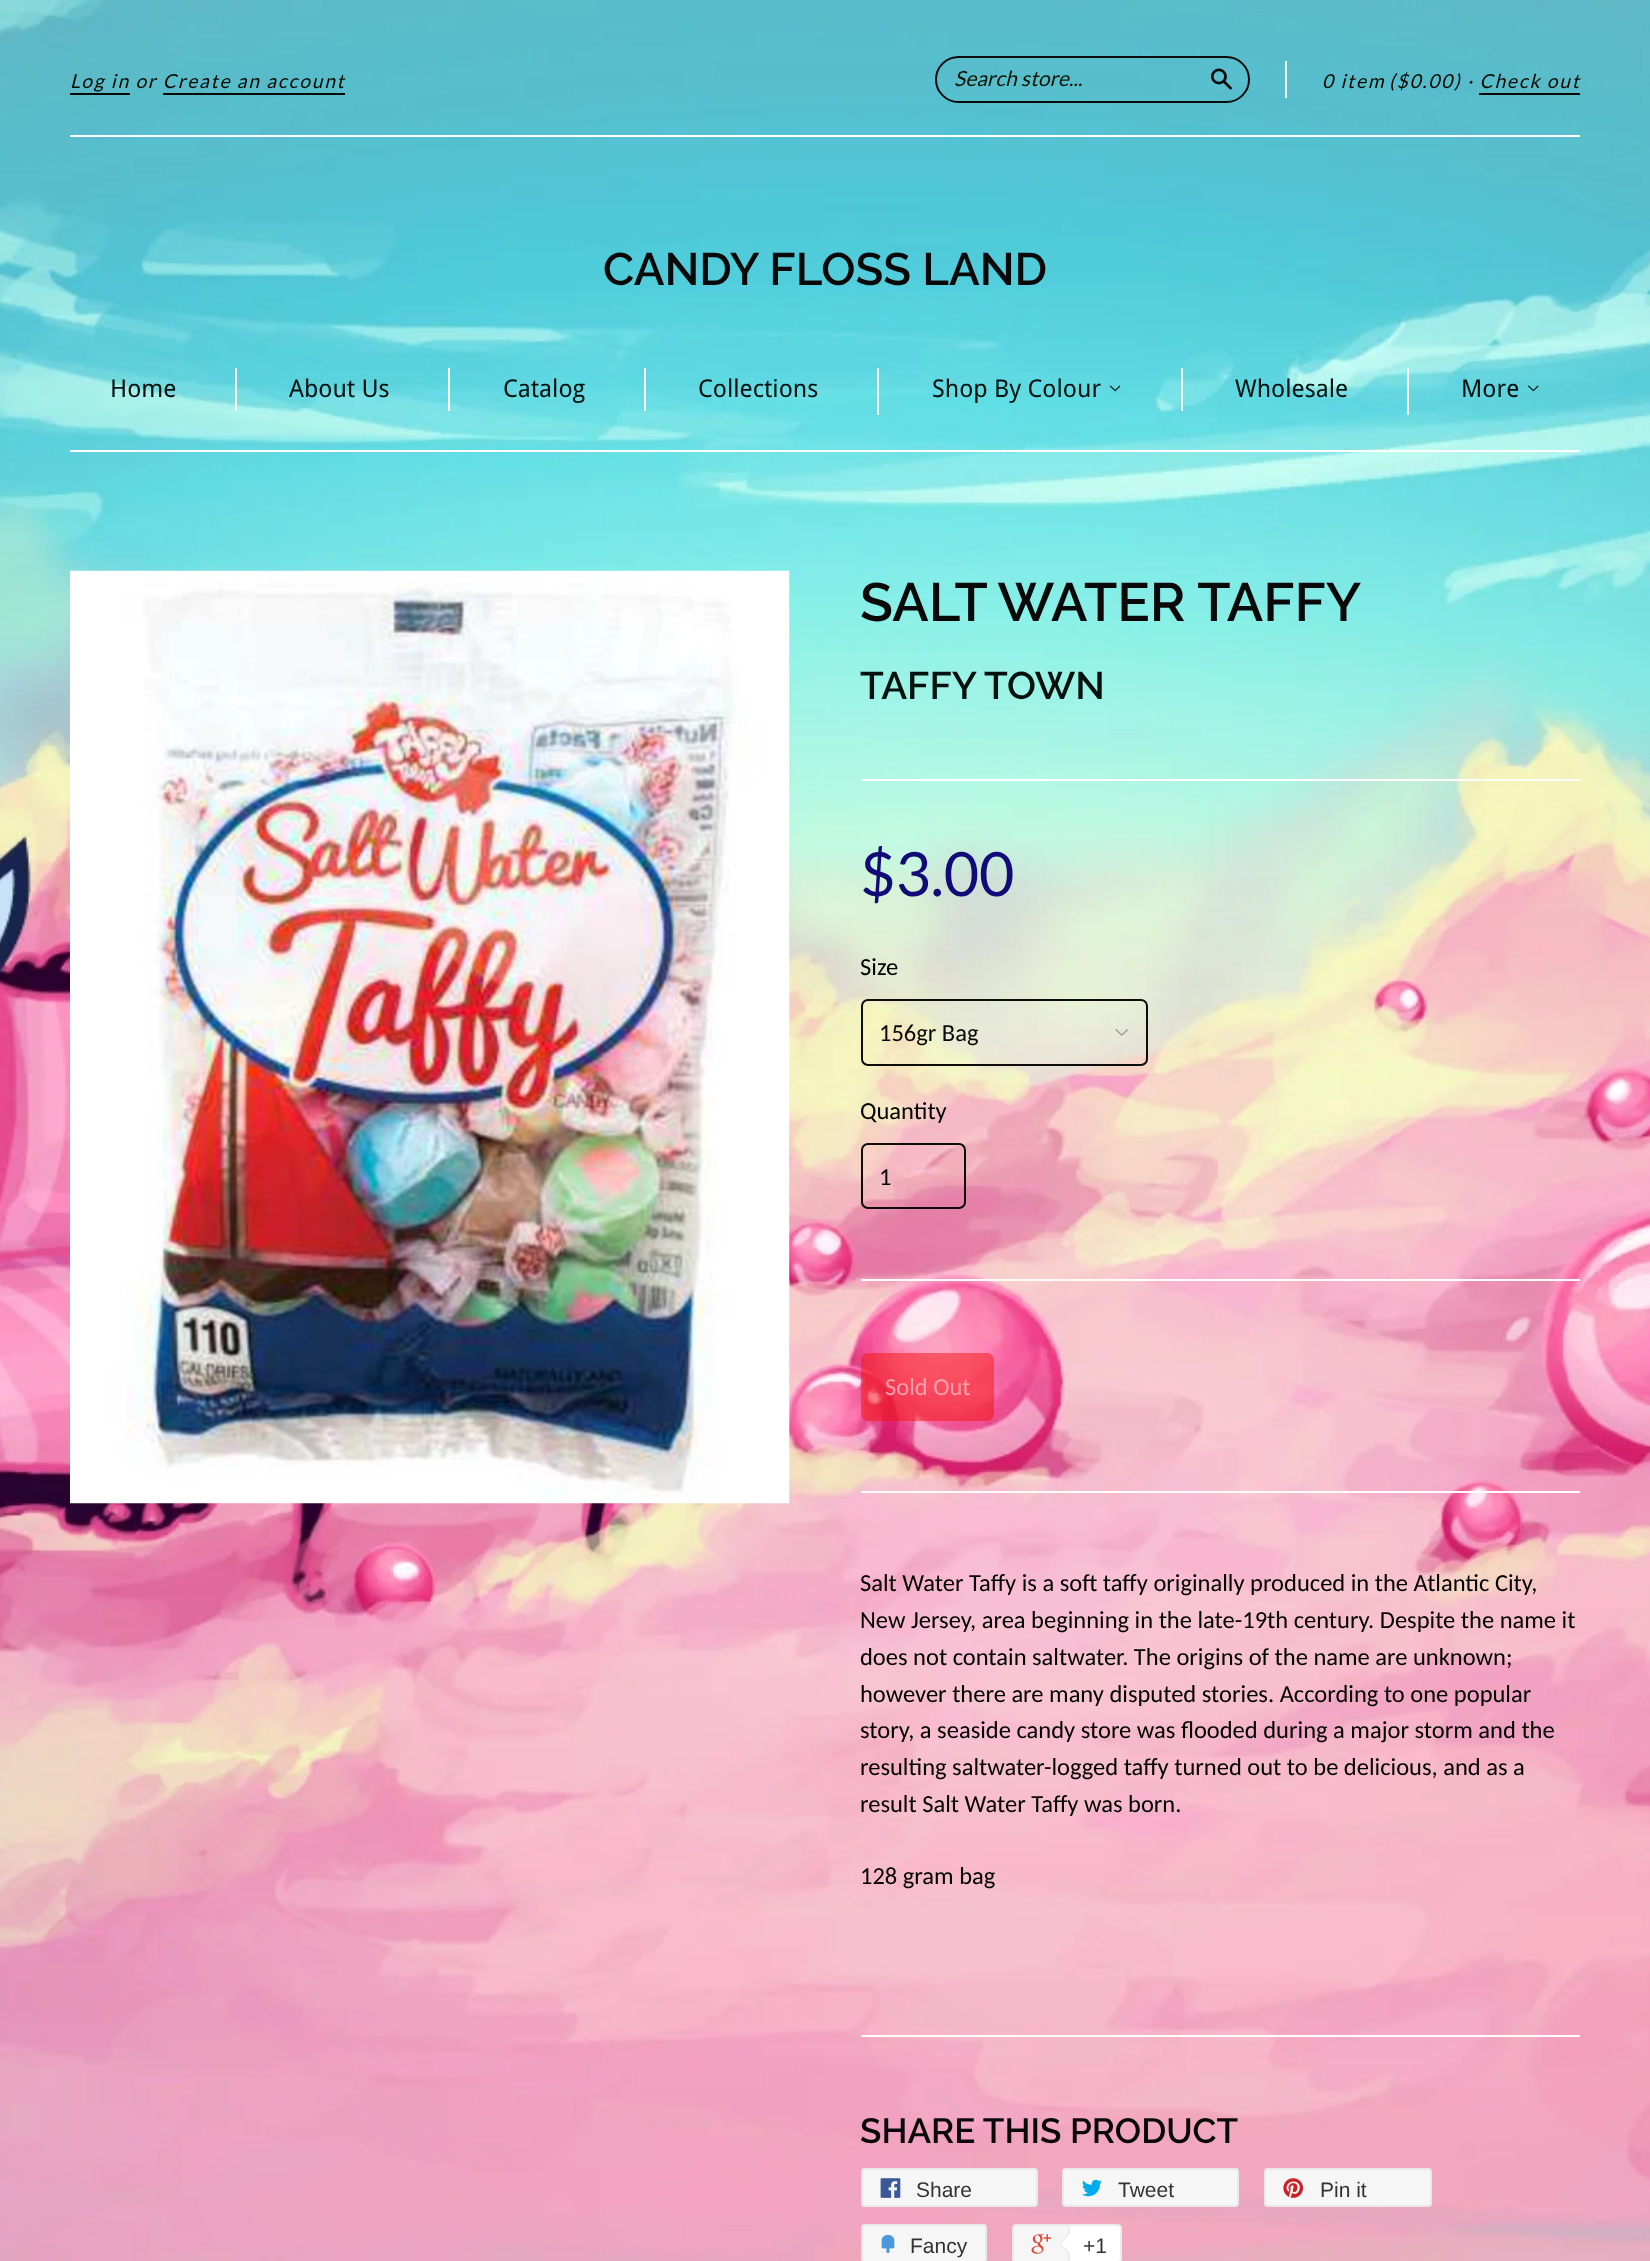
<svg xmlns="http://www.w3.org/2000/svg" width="1650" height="2261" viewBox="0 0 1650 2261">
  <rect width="100%" height="100%" fill="#fff"/>
  <image x="0" y="0" width="1650" height="2261" href="img/1.png"/>
  <path d="M70 450h1510v2H70z" fill="#fcfcfc"/>
  <path d="M70 135h1510v2H70z" fill="#fcfcfc"/>
  <path d="M70 93h60v2H70z" fill="#090a01"/>
  <path d="M163 93h182v2H163z" fill="#090a01"/>
  <rect x="936" y="57" width="313" height="45" rx="22.5" fill="none" stroke="#0c0c0b" stroke-width="2"/>
  <image x="1211" y="68" width="21" height="22" href="img/2.png"/>
  <path d="M1285 61h2v37H1285z" fill="#fcfcfc"/>
  <path d="M1479 93h101v2H1479z" fill="#090a01"/>
  <path d="M235 368h2v43H235z" fill="#fcfcfc"/>
  <path d="M448 368h2v43H448z" fill="#fcfcfc"/>
  <path d="M644 368h2v43H644z" fill="#fcfcfc"/>
  <path d="M877 368h2v47H877z" fill="#fcfcfc"/>
  <image x="1109" y="385" width="12" height="7" href="img/3.png"/>
  <path d="M1181 368h2v43H1181z" fill="#fcfcfc"/>
  <path d="M1407 368h2v47H1407z" fill="#fcfcfc"/>
  <image x="1528" y="385" width="11" height="7" href="img/4.png"/>
  <image x="70" y="570" width="720" height="934" href="img/5.png"/>
  <path d="M861 779h719v2H861z" fill="#fcfcfc"/>
  <image x="1115" y="1029" width="13" height="7" href="img/6.png"/>
  <rect x="862" y="1000" width="285" height="65" rx="6" fill="none" stroke="#0c0c0b" stroke-width="2"/>
  <rect x="862" y="1144" width="103" height="64" rx="6" fill="none" stroke="#0c0c0b" stroke-width="2"/>
  <path d="M861 1279h719v2H861z" fill="#fcfcfc"/>
  <rect x="861" y="1353" width="133" height="68" rx="7" fill="#f5130980"/>
  <path d="M861 1491h719v2H861z" fill="#fcfcfc"/>
  <path d="M861 2035h719v2H861z" fill="#fcfcfc"/>
  <rect x="862" y="2169" width="175" height="37" rx="3" fill="#f6f6f6" stroke="#e9e9e9" stroke-width="2"/>
  <image x="880" y="2178" width="21" height="20" href="img/7.png"/>
  <rect x="1063" y="2169" width="175" height="37" rx="3" fill="#f6f6f6" stroke="#e9e9e9" stroke-width="2"/>
  <image x="1082" y="2179" width="20" height="18" href="img/8.png"/>
  <rect x="1265" y="2169" width="166" height="37" rx="3" fill="#f6f6f6" stroke="#e9e9e9" stroke-width="2"/>
  <image x="1283" y="2178" width="21" height="20" href="img/9.png"/>
  <rect x="862" y="2225" width="124" height="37" rx="3" fill="#f6f6f6" stroke="#e9e9e9" stroke-width="2"/>
  <image x="881" y="2234" width="14" height="20" href="img/10.png"/>
  <rect x="1013" y="2225" width="106" height="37" rx="3" fill="#f6f6f6" stroke="#e9e9e9" stroke-width="2"/>
  <image x="1031" y="2234" width="20" height="20" href="img/11.png"/>
  <path d="M1069 2225H1118C1119.5 2225 1121 2226.5 1121 2228V2259C1121 2260.5 1119.5 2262 1118 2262H1069Z" fill="#fff" stroke="#ececec" stroke-width="2"/>
  <path d="M1069 2233V2254L1059 2243.5Z" fill="#e9e9e9"/>
  <path d="M1071 2233V2254L1060.5 2243.5Z" fill="#fff"/>
  <text x="70" y="88" font-family="Lato" font-size="19.25" font-style="italic" letter-spacing="1.75" fill="#070901">Log in or Create an account</text>
  <text x="954" y="86" font-family="Lato" font-size="21" font-style="italic" fill="#121503">Search store...</text>
  <g font-family="Lato" font-size="19.25" font-style="italic" letter-spacing="1.75" fill="#070901">
    <text x="1322" y="88">0 item</text>
    <text x="1389" y="88">($0.00) · Check out</text>
  </g>
  <text x="603" y="285" font-family="Raleway" font-size="45.5" font-weight="100" fill="#090909">CANDY FLOSS LAND</text>
  <g font-family="Droid Sans" font-size="24.5" fill="#01110d">
    <text x="110" y="397">Home</text>
    <text x="289" y="397">About Us</text>
    <text x="503" y="397">Catalog</text>
    <text x="698" y="397">Collections</text>
    <text x="932" y="397">Shop By Colour</text>
    <text x="1235" y="397">Wholesale</text>
    <text x="1461" y="397">More</text>
  </g>
  <text x="860" y="621" font-family="Raleway" font-size="54" font-weight="100" fill="#090909">SALT WATER TAFFY</text>
  <text x="860" y="699" font-family="Raleway" font-size="38.5" font-weight="100" fill="#01110d">TAFFY TOWN</text>
  <text x="860" y="896" font-family="Lato" font-size="61" fill="#120a76">$3.00</text>
  <text x="860" y="975" font-family="Carlito" font-size="24.5" fill="#010202">Size</text>
  <text x="879" y="1041" font-family="Carlito" font-size="24.5" fill="#090909">156gr Bag</text>
  <text x="860" y="1119" font-family="Carlito" font-size="24.5" fill="#010202">Quantity</text>
  <text x="879" y="1185" font-family="Carlito" font-size="24.5" fill="#090909">1</text>
  <text x="885" y="1395" font-family="Carlito" font-size="24.5" fill="#fba1ac">Sold Out</text>
  <g font-family="Carlito" font-size="24.5" fill="#010202">
    <text x="860" y="1591">Salt Water Taffy is a soft taffy originally produced in the Atlantic City,</text>
    <text x="860" y="1628">New Jersey, area beginning in the late-19th century. Despite the name it</text>
    <text x="860" y="1665">does not contain saltwater. The origins of the name are unknown;</text>
    <text x="860" y="1702">however there are many disputed stories. According to one popular</text>
    <text x="860" y="1738">story, a seaside candy store was flooded during a major storm and the</text>
    <text x="860" y="1775">resulting saltwater-logged taffy turned out to be delicious, and as a</text>
    <text x="860" y="1812">result Salt Water Taffy was born.</text>
    <text x="860" y="1884">128 gram bag</text>
  </g>
  <text x="860" y="2143" font-family="Raleway" font-size="35" font-weight="100" fill="#090909">SHARE THIS PRODUCT</text>
  <g font-family="Liberation Sans" font-size="21" fill="#333">
    <text x="916" y="2197">Share</text>
    <text x="1118" y="2197">Tweet</text>
    <text x="1320" y="2197">Pin it</text>
    <text x="910" y="2253">Fancy</text>
    <text x="1083" y="2253">+1</text>
  </g>
</svg>
